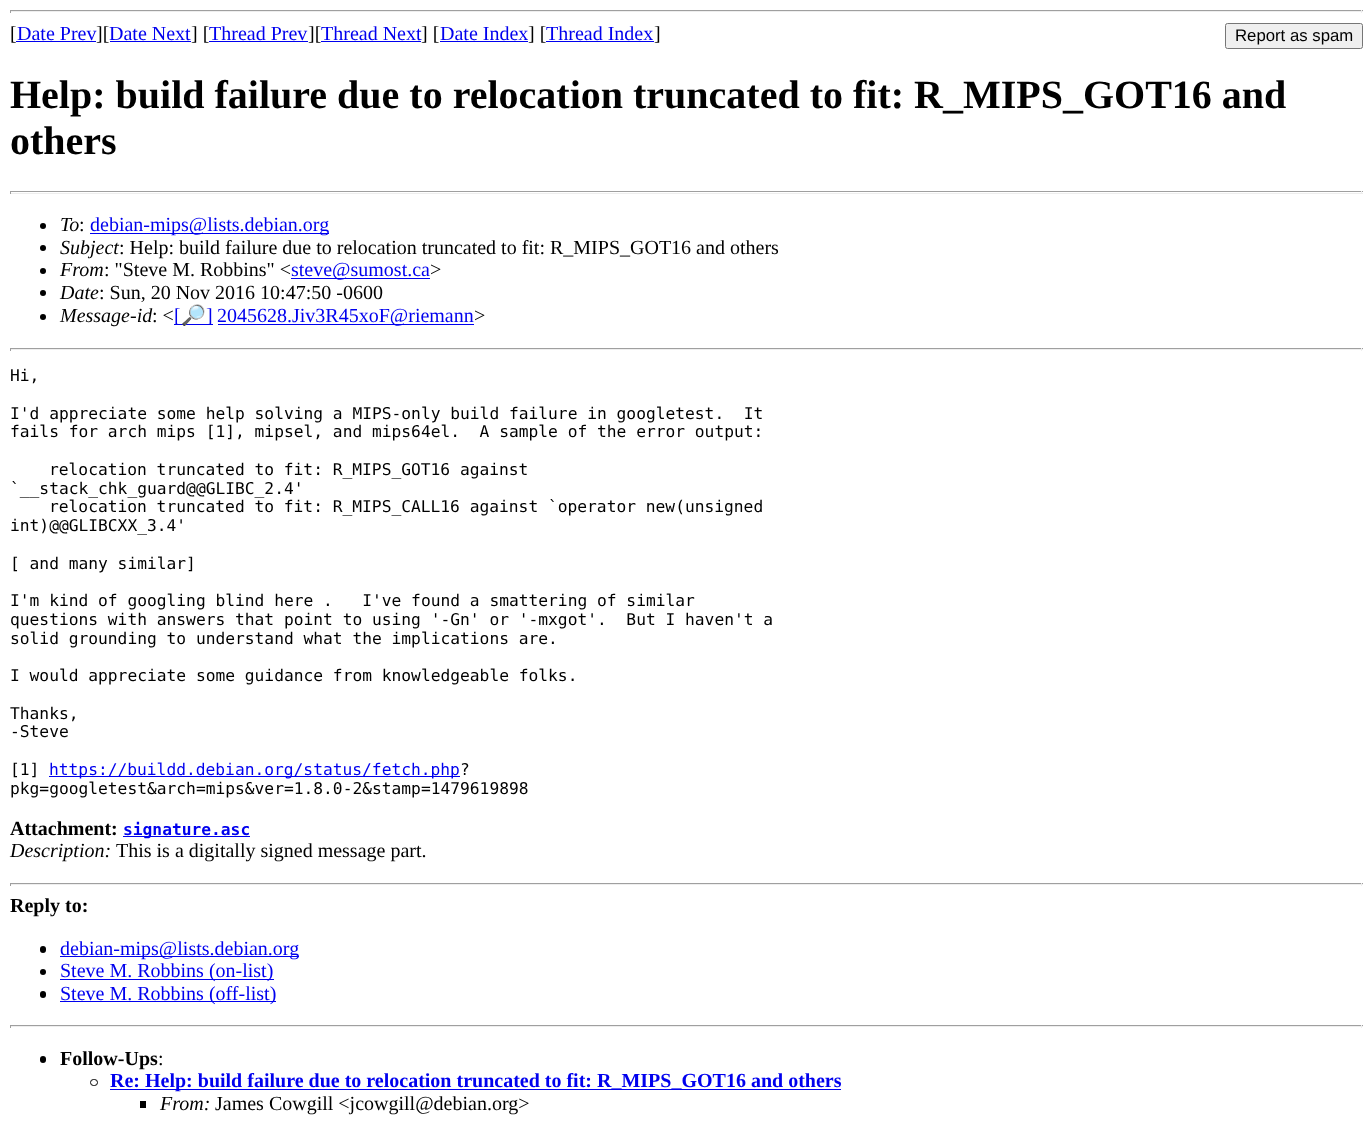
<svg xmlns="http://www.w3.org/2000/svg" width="1372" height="1134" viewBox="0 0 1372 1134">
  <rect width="100%" height="100%" fill="#fff"/>
  <path d="M10 10h1353v1H10z" fill="#9f9f9f"/>
  <path d="M1361 10h1v3H1361z" fill="#eee"/>
  <path d="M10 11h1353v1H10z" fill="#eee"/>
  <path d="M10 10h1v3H10z" fill="#9f9f9f"/>
  <path d="M16 41h80v1H16z" fill="#00e"/>
  <path d="M110 41h81v1H110z" fill="#00e"/>
  <path d="M209 41h99v1H209z" fill="#00e"/>
  <path d="M321 41h100v1H321z" fill="#00e"/>
  <path d="M440 41h88v1H440z" fill="#00e"/>
  <path d="M546 41h108v1H546z" fill="#00e"/>
  <rect x="1225.5" y="23.5" width="137" height="25" rx="2" fill="#efefef" stroke="#767676"/>
  <path d="M10 191h1353v1H10z" fill="#9f9f9f"/>
  <path d="M1361 191h1v3H1361z" fill="#eee"/>
  <path d="M10 193h1353v1H10z" fill="#eee"/>
  <path d="M10 191h1v3H10z" fill="#9f9f9f"/>
  <circle cx="43" cy="226" r="3" fill="#000"/>
  <path d="M90 233h239v1H90z" fill="#00e"/>
  <circle cx="43" cy="248" r="3" fill="#000"/>
  <circle cx="43" cy="271" r="3" fill="#000"/>
  <path d="M291 278h139v1H291z" fill="#00e"/>
  <circle cx="43" cy="293" r="3" fill="#000"/>
  <circle cx="43" cy="317" r="3" fill="#000"/>
  <path d="M174 324h39v1H174z" fill="#00e"/>
  <path d="M218 324h256v1H218z" fill="#00e"/>
  <path d="M10 348h1353v1H10z" fill="#9f9f9f"/>
  <path d="M1361 348h1v3H1361z" fill="#eee"/>
  <path d="M10 349h1353v1H10z" fill="#eee"/>
  <path d="M10 348h1v3H10z" fill="#9f9f9f"/>
  <path d="M49 776h411v1H49z" fill="#00e"/>
  <path d="M123 836h127v1H123z" fill="#00e"/>
  <path d="M10 883h1353v1H10z" fill="#9f9f9f"/>
  <path d="M1361 883h1v3H1361z" fill="#eee"/>
  <path d="M10 884h1353v1H10z" fill="#eee"/>
  <path d="M10 883h1v3H10z" fill="#9f9f9f"/>
  <rect x="40" y="946" width="6" height="7" rx="3" fill="#000"/>
  <path d="M60 956h239v1H60z" fill="#00e"/>
  <circle cx="43" cy="972" r="3" fill="#000"/>
  <path d="M60 979h214v1H60z" fill="#00e"/>
  <rect x="40" y="991" width="6" height="7" rx="3" fill="#000"/>
  <path d="M60 1001h216v1H60z" fill="#00e"/>
  <path d="M10 1025h1353v1H10z" fill="#9f9f9f"/>
  <path d="M1361 1025h1v3H1361z" fill="#eee"/>
  <path d="M10 1026h1353v1H10z" fill="#eee"/>
  <path d="M10 1025h1v3H10z" fill="#9f9f9f"/>
  <rect x="40" y="1056" width="6" height="7" rx="3" fill="#000"/>
  <rect x="90.5" y="1079.5" width="7" height="6" rx="3" fill="none" stroke="#000"/>
  <path d="M110 1089h731v1H110z" fill="#00e"/>
  <path d="M140 1101h6v7H140z" fill="#000"/>
  <text x="10" y="40" font-family="Liberation Serif" font-size="20" fill="#000">[</text>
  <text x="17" y="40" font-family="Liberation Serif" font-size="20" fill="#00e">Date Prev</text>
  <text x="96" y="40" font-family="Liberation Serif" font-size="20" fill="#000">][</text>
  <text x="109" y="40" font-family="Liberation Serif" font-size="20" fill="#00e">Date Next</text>
  <text x="191" y="40" font-family="Liberation Serif" font-size="20" fill="#000">] [</text>
  <text x="209" y="40" font-family="Liberation Serif" font-size="20" fill="#00e">Thread Prev</text>
  <text x="308" y="40" font-family="Liberation Serif" font-size="20" fill="#000">][</text>
  <text x="321" y="40" font-family="Liberation Serif" font-size="20" fill="#00e">Thread Next</text>
  <text x="421" y="40" font-family="Liberation Serif" font-size="20" fill="#000">] [</text>
  <text x="440" y="40" font-family="Liberation Serif" font-size="20" fill="#00e">Date Index</text>
  <text x="528" y="40" font-family="Liberation Serif" font-size="20" fill="#000">] [</text>
  <text x="546" y="40" font-family="Liberation Serif" font-size="20" fill="#00e">Thread Index</text>
  <text x="654" y="40" font-family="Liberation Serif" font-size="20" fill="#000">]</text>
  <text x="1235" y="41" font-family="Liberation Sans" font-size="16.75" fill="#000">Report as spam</text>
  <g font-family="Liberation Serif" font-size="40" font-weight="bold" fill="#000">
    <text x="10" y="108">Help: build failure due to relocation truncated to fit: R_MIPS_GOT16 and</text>
    <text x="10" y="154">others</text>
  </g>
  <text x="60" y="231" font-family="Liberation Serif" font-size="20" font-style="italic" fill="#000">To</text>
  <text x="79" y="231" font-family="Liberation Serif" font-size="20" fill="#000">:</text>
  <text x="90" y="231" font-family="Liberation Serif" font-size="20" fill="#00e">debian-mips@lists.debian.org</text>
  <text x="60" y="254" font-family="Liberation Serif" font-size="20" font-style="italic" fill="#000">Subject</text>
  <text x="119" y="254" font-family="Liberation Serif" font-size="20" fill="#000">: Help: build failure due to relocation truncated to fit: R_MIPS_GOT16 and others</text>
  <text x="60" y="276" font-family="Liberation Serif" font-size="20" font-style="italic" fill="#000">From</text>
  <text x="104" y="276" font-family="Liberation Serif" font-size="20" fill="#000">: "Steve M. Robbins" &lt;</text>
  <text x="291" y="276" font-family="Liberation Serif" font-size="20" fill="#00e">steve@sumost.ca</text>
  <text x="430" y="276" font-family="Liberation Serif" font-size="20" fill="#000">&gt;</text>
  <text x="60" y="299" font-family="Liberation Serif" font-size="20" font-style="italic" fill="#000">Date</text>
  <text x="99" y="299" font-family="Liberation Serif" font-size="20" fill="#000">: Sun, 20 Nov 2016 10:47:50 -0600</text>
  <text x="60" y="322" font-family="Liberation Serif" font-size="20" font-style="italic" fill="#000">Message-id</text>
  <text x="152" y="322" font-family="Liberation Serif" font-size="20" fill="#000">: &lt;</text>
  <text x="174" y="322" font-family="Liberation Serif" font-size="20" fill="#00e">[</text>
  <text x="181" y="322" font-family="Noto Color Emoji" font-size="20" fill="#00e">🔎</text>
  <g font-family="Liberation Serif" font-size="20" fill="#00e">
    <text x="206" y="322">]</text>
    <text x="217" y="322">2045628.Jiv3R45xoF@riemann</text>
  </g>
  <text x="474" y="322" font-family="Liberation Serif" font-size="20" fill="#000">&gt;</text>
  <g font-family="DejaVu Sans Mono" font-size="16.25" fill="#000">
    <text x="10" y="381">Hi,</text>
    <text x="10" y="419" xml:space="preserve">I'd appreciate some help solving a MIPS-only build failure in googletest.  It</text>
    <text x="10" y="437" xml:space="preserve">fails for arch mips [1], mipsel, and mips64el.  A sample of the error output:</text>
    <text x="49" y="475">relocation truncated to fit: R_MIPS_GOT16 against</text>
    <text x="10" y="494">`__stack_chk_guard@@GLIBC_2.4'</text>
    <text x="49" y="512">relocation truncated to fit: R_MIPS_CALL16 against `operator new(unsigned</text>
    <text x="10" y="531">int)@@GLIBCXX_3.4'</text>
    <text x="10" y="569">[ and many similar]</text>
    <text x="10" y="606" xml:space="preserve">I'm kind of googling blind here .   I've found a smattering of similar</text>
    <text x="10" y="625" xml:space="preserve">questions with answers that point to using '-Gn' or '-mxgot'.  But I haven't a</text>
    <text x="10" y="644">solid grounding to understand what the implications are.</text>
    <text x="10" y="681">I would appreciate some guidance from knowledgeable folks.</text>
    <text x="10" y="719">Thanks,</text>
    <text x="10" y="737">-Steve</text>
    <text x="10" y="775">[1]</text>
  </g>
  <text x="49" y="775" font-family="DejaVu Sans Mono" font-size="16.25" fill="#00e">https://buildd.debian.org/status/fetch.php</text>
  <g font-family="DejaVu Sans Mono" font-size="16.25" fill="#000">
    <text x="460" y="775">?</text>
    <text x="10" y="794">pkg=googletest&amp;arch=mips&amp;ver=1.8.0-2&amp;stamp=1479619898</text>
  </g>
  <text x="10" y="835" font-family="Liberation Serif" font-size="20" font-weight="bold" fill="#000">Attachment:</text>
  <text x="123" y="835" font-family="DejaVu Sans Mono" font-size="16.25" font-weight="bold" fill="#00e">signature.asc</text>
  <text x="10" y="857" font-family="Liberation Serif" font-size="20" font-style="italic" fill="#000">Description:</text>
  <text x="116" y="857" font-family="Liberation Serif" font-size="20" fill="#000">This is a digitally signed message part.</text>
  <text x="10" y="912" font-family="Liberation Serif" font-size="20" font-weight="bold" fill="#000">Reply to:</text>
  <g font-family="Liberation Serif" font-size="20" fill="#00e">
    <text x="60" y="955">debian-mips@lists.debian.org</text>
    <text x="60" y="977">Steve M. Robbins (on-list)</text>
    <text x="60" y="1000">Steve M. Robbins (off-list)</text>
  </g>
  <text x="60" y="1065" font-family="Liberation Serif" font-size="20" font-weight="bold" fill="#000">Follow-Ups</text>
  <text x="158" y="1065" font-family="Liberation Serif" font-size="20" fill="#000">:</text>
  <text x="110" y="1087" font-family="Liberation Serif" font-size="20" font-weight="bold" fill="#00e">Re: Help: build failure due to relocation truncated to fit: R_MIPS_GOT16 and others</text>
  <text x="160" y="1110" font-family="Liberation Serif" font-size="20" font-style="italic" fill="#000">From:</text>
  <text x="215" y="1110" font-family="Liberation Serif" font-size="20" fill="#000">James Cowgill &lt;jcowgill@debian.org&gt;</text>
</svg>
